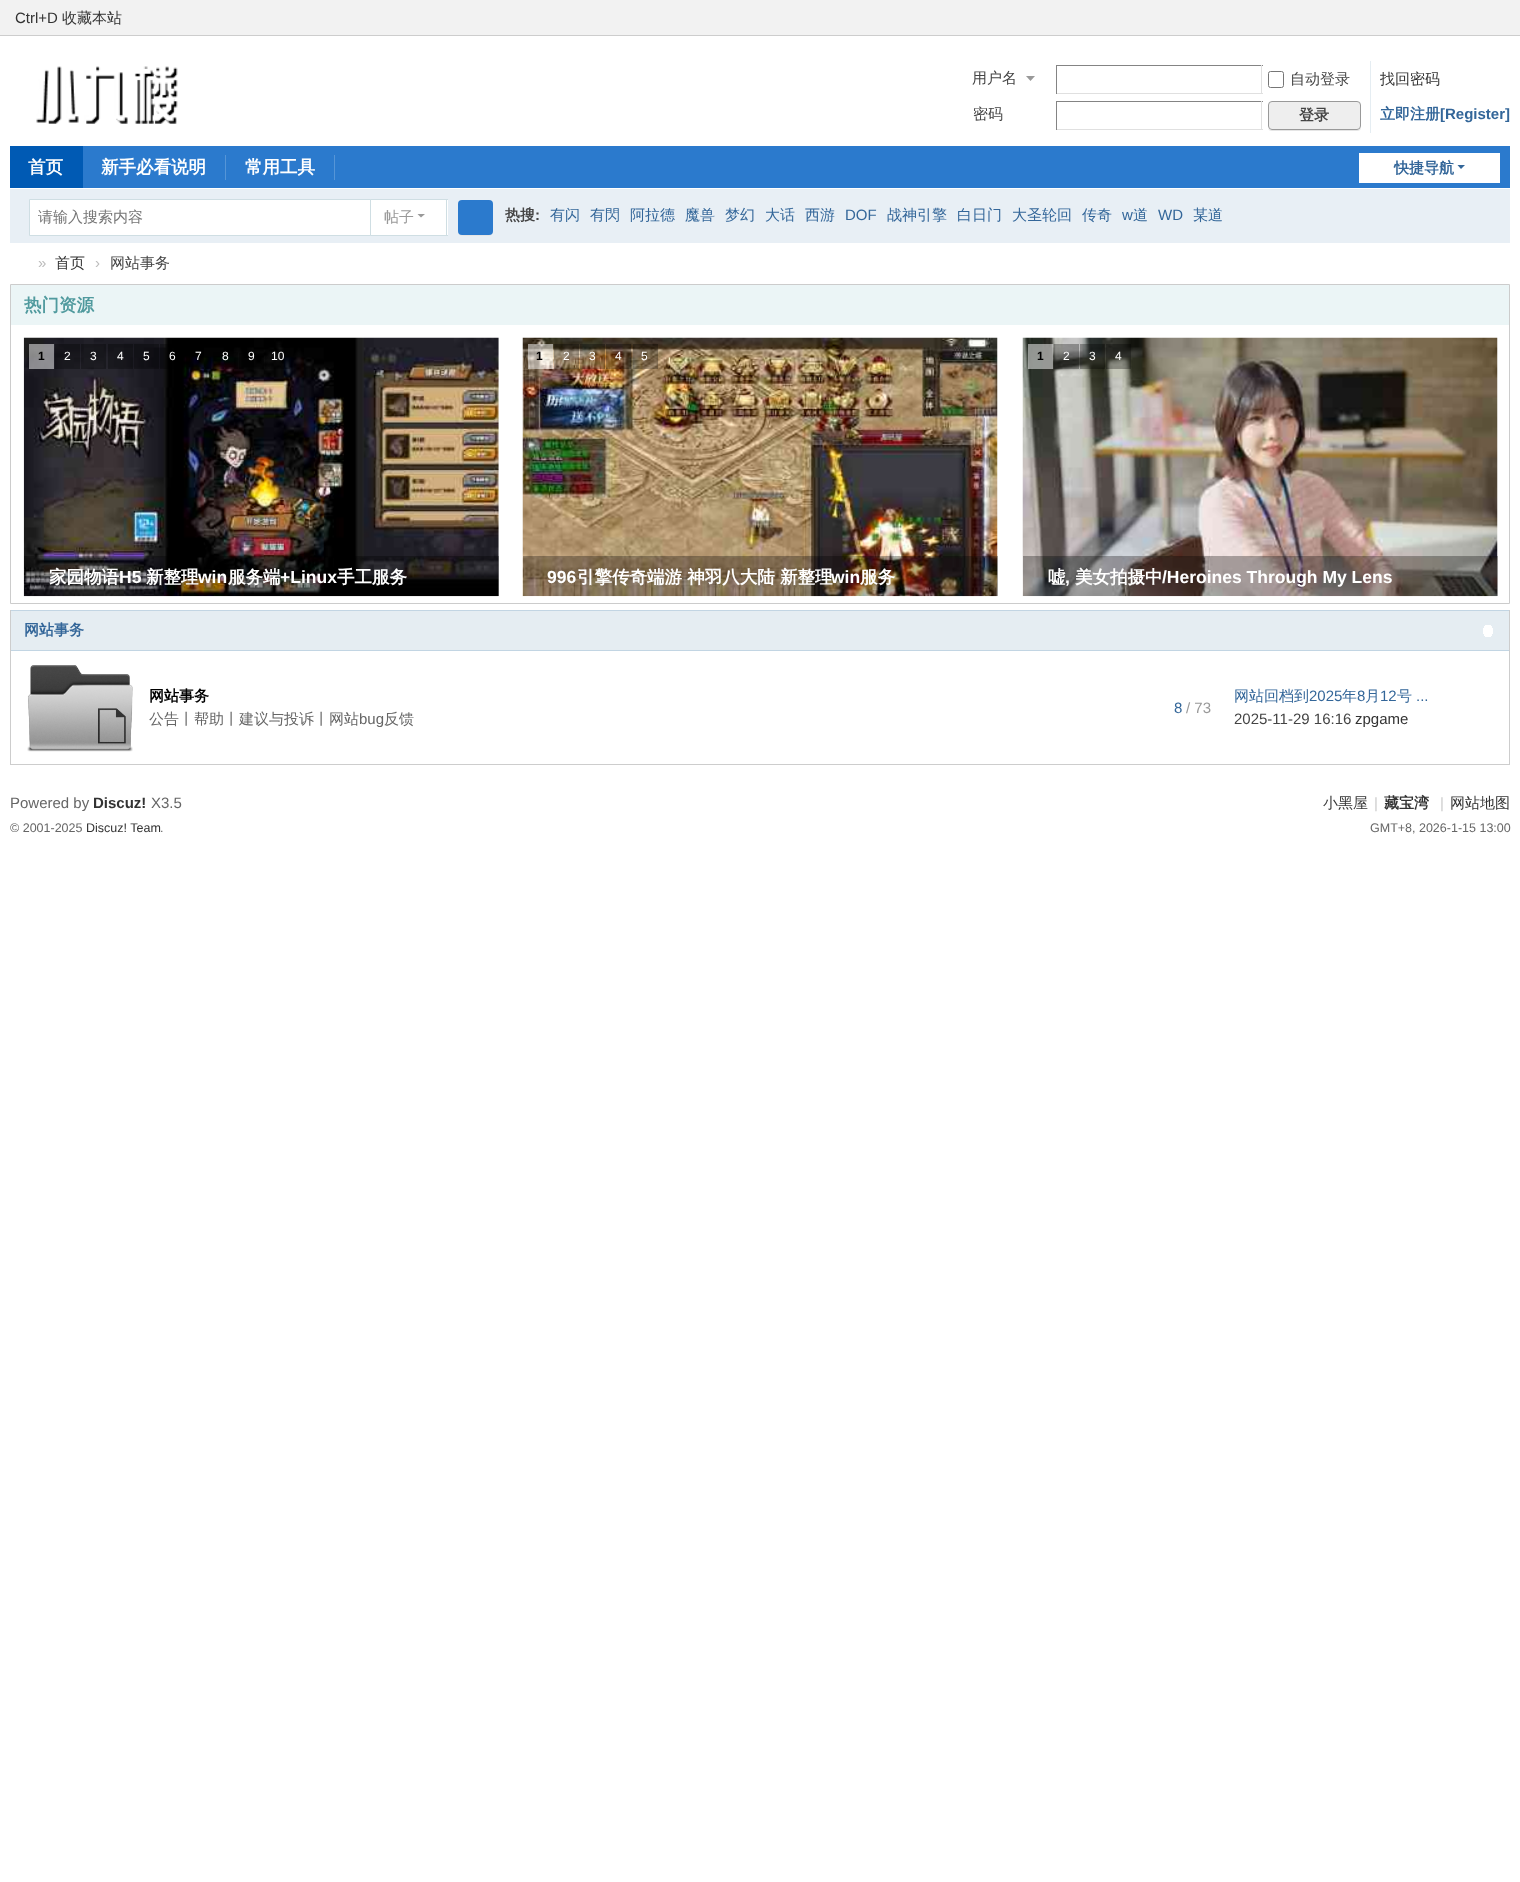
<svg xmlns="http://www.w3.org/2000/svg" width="1520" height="1882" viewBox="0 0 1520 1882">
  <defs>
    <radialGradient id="g1" gradientUnits="userSpaceOnUse" cx="0" cy="0" r="1" gradientTransform="matrix(12 0 0 14 1488 631)"><stop offset="0.45" stop-color="#fff"/><stop offset="0.45" stop-color="#e5edf2"/></radialGradient>
  </defs>
  <rect width="100%" height="100%" fill="#fff"/>
  <path d="M0 0h1520v35H0z" fill="#f2f2f2"/>
  <path d="M0 35h1520v1H0z" fill="#cdcdcd"/>
  <image x="36" y="66" width="142" height="58" href="img/1.png"/>
  <path d="M1035 76H1026L1030.5 81Z" fill="#999"/>
  <path d="M1056 65h207v1H1056z" fill="#848484"/>
  <path d="M1261 65h1v29H1261z" fill="#e0e0e0"/>
  <path d="M1056 93h207v1H1056z" fill="#e0e0e0"/>
  <path d="M1056 65h1v29H1056z" fill="#848484"/>
  <rect x="1268.5" y="71.5" width="15" height="16" rx="2" fill="none" stroke="#767676"/>
  <path d="M1056 101h207v1H1056z" fill="#848484"/>
  <path d="M1261 101h1v29H1261z" fill="#e0e0e0"/>
  <path d="M1056 129h207v1H1056z" fill="#e0e0e0"/>
  <path d="M1056 101h1v29H1056z" fill="#848484"/>
  <path d="M1370 61h1v72H1370z" fill="#e5edf2"/>
  <path d="M1268 129C1269 130 1270 131 1272 131H1357C1359 131 1361 130 1361 128C1360 129 1359 130 1358 130H1271Z" fill="#e5e5e5"/>
  <rect x="1268.5" y="101.5" width="92" height="28" rx="3.5" fill="#eee" stroke="#999"/>
  <path d="M83 146h1427v42H83z" fill="#2b7acd"/>
  <path d="M10 146h73v42H10z" fill="#005ab4"/>
  <path d="M225 155h1v25H225z" fill="#5595d7"/>
  <path d="M334 155h1v25H334z" fill="#5595d7"/>
  <path d="M1359 153h141v30H1359z" fill="#fff"/>
  <path d="M1457.5 165H1465L1461 169Z" fill="#369"/>
  <path d="M10 189h1500v54H10z" fill="#e8eff5"/>
  <path d="M369 199h79v1H369z" fill="#cfdee3"/>
  <path d="M371 200h77v35H371z" fill="#fff"/>
  <path d="M446 199h1v37H446z" fill="#cfdee3"/>
  <path d="M369 235h79v1H369z" fill="#cfdee3"/>
  <path d="M29.5 199.5h341v36H29.5z" fill="#fff" stroke="#cfdee3"/>
  <path d="M417.5 214H425L421 217.5Z" fill="#999"/>
  <path d="M458.5 233.5C459 235 460.5 236 462 236H489C491 236 493 234 493 232V205C493 204 493 203.5 492.5 203V232C491.5 236 487 235 484 235H466C463.5 235 460 236 458.5 233.5Z" fill="#e5e5e5"/>
  <rect x="458" y="200" width="35" height="35" rx="4" fill="#2b7acd"/>
  <path d="M10.5 284.5h1499v319H10.5z" fill="none" stroke="#ccc"/>
  <path d="M11 285h1498v40H11z" fill="#ebf5f6"/>
  <image x="23" y="337" width="476" height="260" href="img/2.png"/>
  <path d="M29 344h25v25H29z" fill="#ffffff80"/>
  <path d="M55 344h25v25H55z" fill="#0000004d"/>
  <path d="M81 344h25v25H81z" fill="#0000004d"/>
  <path d="M108 344h25v25H108z" fill="#0000004d"/>
  <path d="M134 344h25v25H134z" fill="#0000004d"/>
  <path d="M160 344h25v25H160z" fill="#0000004d"/>
  <path d="M186 357h25v12H186z" fill="#0000004d"/>
  <path d="M213 352h25v17H213z" fill="#0000004d"/>
  <path d="M239 353h25v16H239z" fill="#0000004d"/>
  <path d="M265 344h25v25H265z" fill="#0000004d"/>
  <path d="M24 556h475v40H24z" fill="#0000004d"/>
  <image x="522" y="337" width="476" height="260" href="img/3.png"/>
  <path d="M528 344h25v25H528z" fill="#ffffff80"/>
  <path d="M554 344h25v25H554z" fill="#0000004d"/>
  <path d="M580 344h25v25H580z" fill="#0000004d"/>
  <path d="M606 344h25v25H606z" fill="#0000004d"/>
  <path d="M633 344h25v25H633z" fill="#0000004d"/>
  <path d="M523 556h475v40H523z" fill="#0000004d"/>
  <image x="1022" y="337" width="476" height="260" href="img/4.png"/>
  <path d="M1028 344h25v25H1028z" fill="#ffffff80"/>
  <path d="M1054 344h25v25H1054z" fill="#0000004d"/>
  <path d="M1080 344h25v25H1080z" fill="#0000004d"/>
  <path d="M1106 344h25v25H1106z" fill="#0000004d"/>
  <path d="M1023 556h475v40H1023z" fill="#0000004d"/>
  <path d="M1509 610h1v155H1509z" fill="#cdcdcd"/>
  <path d="M10 764h1500v1H10z" fill="#cdcdcd"/>
  <path d="M10 610h1v155H10z" fill="#cdcdcd"/>
  <path d="M11 611h1498v39H11z" fill="#e5edf2"/>
  <path d="M11 610h1498v1H11z" fill="#c2d5e3"/>
  <path d="M11 650h1498v1H11z" fill="#c2d5e3"/>
  <path d="M1483 625h10v12H1483z" fill="url(#g1)"/>
  <image x="27" y="665" width="106" height="87" href="img/5.png"/>
  <text x="15" y="23" font-family="Liberation Sans" font-size="15" fill="#333">Ctrl+D</text>
  <text x="62" y="23" font-family="WenQuanYi Zen Hei" font-size="15" font-weight="500" fill="#333">收藏本站</text>
  <g font-family="WenQuanYi Zen Hei" font-size="15" font-weight="500" fill="#444">
    <text x="972" y="83">用户名</text>
    <text x="1290" y="84">自动登录</text>
  </g>
  <text x="1380" y="84" font-family="WenQuanYi Zen Hei" font-size="15" font-weight="500" fill="#333">找回密码</text>
  <text x="973" y="119" font-family="WenQuanYi Zen Hei" font-size="15" font-weight="500" fill="#444">密码</text>
  <text x="1299" y="120" font-family="WenQuanYi Zen Hei" font-size="15" font-weight="bold" fill="#444">登录</text>
  <text x="1380" y="119" font-family="WenQuanYi Zen Hei" font-size="15" font-weight="bold" fill="#369">立即注册</text>
  <text x="1440" y="119" font-family="Liberation Sans" font-size="15" font-weight="bold" fill="#369">[Register]</text>
  <g font-family="WenQuanYi Zen Hei" font-size="17.5" font-weight="bold" fill="#fff">
    <text x="28" y="173">首页</text>
    <text x="101" y="173">新手必看说明</text>
    <text x="245" y="173">常用工具</text>
  </g>
  <text x="1394" y="173" font-family="WenQuanYi Zen Hei" font-size="15" font-weight="bold" fill="#369">快捷导航</text>
  <text x="38" y="222" font-family="WenQuanYi Zen Hei" font-size="15" font-weight="500" fill="#757575">请输入搜索内容</text>
  <text x="384" y="222" font-family="WenQuanYi Zen Hei" font-size="15" font-weight="500" fill="#999">帖子</text>
  <text x="505" y="220" font-family="WenQuanYi Zen Hei" font-size="15" font-weight="bold" fill="#444">热搜</text>
  <text x="535" y="220" font-family="Liberation Sans" font-size="15" font-weight="bold" fill="#444">:</text>
  <g font-family="WenQuanYi Zen Hei" font-size="15" font-weight="500" fill="#369">
    <text x="550" y="220">有闪</text>
    <text x="590" y="220">有閃</text>
    <text x="630" y="220">阿拉德</text>
    <text x="685" y="220">魔兽</text>
    <text x="725" y="220">梦幻</text>
    <text x="765" y="220">大话</text>
    <text x="805" y="220">西游</text>
  </g>
  <text x="845" y="220" font-family="Liberation Sans" font-size="15" fill="#369">DOF</text>
  <g font-family="WenQuanYi Zen Hei" font-size="15" font-weight="500" fill="#369">
    <text x="887" y="220">战神引擎</text>
    <text x="957" y="220">白日门</text>
    <text x="1012" y="220">大圣轮回</text>
    <text x="1082" y="220">传奇</text>
  </g>
  <text x="1122" y="220" font-family="Liberation Sans" font-size="15" fill="#369">w</text>
  <text x="1133" y="220" font-family="WenQuanYi Zen Hei" font-size="15" font-weight="500" fill="#369">道</text>
  <text x="1158" y="220" font-family="Liberation Sans" font-size="15" fill="#369">WD</text>
  <text x="1193" y="220" font-family="WenQuanYi Zen Hei" font-size="15" font-weight="500" fill="#369">某道</text>
  <text x="38" y="268" font-family="Liberation Sans" font-size="15" fill="#bdbdbd">»</text>
  <text x="55" y="268" font-family="WenQuanYi Zen Hei" font-size="15" font-weight="500" fill="#333">首页</text>
  <text x="95" y="268" font-family="Liberation Sans" font-size="15" fill="#bdbdbd">›</text>
  <text x="110" y="268" font-family="WenQuanYi Zen Hei" font-size="15" font-weight="500" fill="#444">网站事务</text>
  <text x="24" y="311" font-family="WenQuanYi Zen Hei" font-size="17.5" font-weight="bold" fill="#509a9e">热门资源</text>
  <text x="38" y="360" font-family="Liberation Sans" font-size="12" font-weight="bold" fill="#000">1</text>
  <g font-family="Liberation Sans" font-size="12" fill="#fff">
    <text x="64" y="360">2</text>
    <text x="90" y="360">3</text>
    <text x="117" y="360">4</text>
    <text x="143" y="360">5</text>
    <text x="169" y="360">6</text>
    <text x="195" y="360">7</text>
    <text x="222" y="360">8</text>
    <text x="248" y="360">9</text>
    <text x="271" y="360">10</text>
  </g>
  <text x="49" y="583" font-family="WenQuanYi Zen Hei" font-size="17.5" font-weight="bold" fill="#fff">家园物语</text>
  <text x="119" y="583" font-family="Liberation Sans" font-size="17.5" font-weight="bold" fill="#fff">H5</text>
  <text x="146" y="583" font-family="WenQuanYi Zen Hei" font-size="17.5" font-weight="bold" fill="#fff">新整理</text>
  <text x="198" y="583" font-family="Liberation Sans" font-size="17.5" font-weight="bold" fill="#fff">win</text>
  <text x="228" y="583" font-family="WenQuanYi Zen Hei" font-size="17.5" font-weight="bold" fill="#fff">服务端</text>
  <text x="280" y="583" font-family="Liberation Sans" font-size="17.5" font-weight="bold" fill="#fff">+Linux</text>
  <text x="337" y="583" font-family="WenQuanYi Zen Hei" font-size="17.5" font-weight="bold" fill="#fff">手工服务</text>
  <text x="536" y="360" font-family="Liberation Sans" font-size="12" font-weight="bold" fill="#000">1</text>
  <g font-family="Liberation Sans" font-size="12" fill="#fff">
    <text x="563" y="360">2</text>
    <text x="589" y="360">3</text>
    <text x="615" y="360">4</text>
    <text x="641" y="360">5</text>
  </g>
  <text x="547" y="583" font-family="Liberation Sans" font-size="17.5" font-weight="bold" fill="#fff">996</text>
  <text x="577" y="583" font-family="WenQuanYi Zen Hei" font-size="17.5" font-weight="bold" fill="#fff">引擎传奇端游 神羽八大陆 新整理</text>
  <text x="831" y="583" font-family="Liberation Sans" font-size="17.5" font-weight="bold" fill="#fff">win</text>
  <text x="860" y="583" font-family="WenQuanYi Zen Hei" font-size="17.5" font-weight="bold" fill="#fff">服务</text>
  <text x="1037" y="360" font-family="Liberation Sans" font-size="12" font-weight="bold" fill="#000">1</text>
  <g font-family="Liberation Sans" font-size="12" fill="#fff">
    <text x="1063" y="360">2</text>
    <text x="1089" y="360">3</text>
    <text x="1115" y="360">4</text>
  </g>
  <text x="1048" y="583" font-family="WenQuanYi Zen Hei" font-size="17.5" font-weight="bold" fill="#fff">嘘</text>
  <text x="1065" y="583" font-family="Liberation Sans" font-size="17.5" font-weight="bold" fill="#fff">,</text>
  <text x="1075" y="583" font-family="WenQuanYi Zen Hei" font-size="17.5" font-weight="bold" fill="#fff">美女拍摄中</text>
  <text x="1162" y="583" font-family="Liberation Sans" font-size="17.5" font-weight="bold" fill="#fff">/Heroines Through My Lens</text>
  <text x="24" y="635" font-family="WenQuanYi Zen Hei" font-size="15" font-weight="bold" fill="#369">网站事务</text>
  <text x="149" y="701" font-family="WenQuanYi Zen Hei" font-size="15" font-weight="bold" fill="#000">网站事务</text>
  <text x="149" y="724" font-family="WenQuanYi Zen Hei" font-size="15" font-weight="500" fill="#666">公告丨帮助丨建议与投诉丨网站</text>
  <text x="359" y="724" font-family="Liberation Sans" font-size="15" fill="#666">bug</text>
  <text x="384" y="724" font-family="WenQuanYi Zen Hei" font-size="15" font-weight="500" fill="#666">反馈</text>
  <text x="1174" y="713" font-family="Liberation Sans" font-size="15" fill="#369">8</text>
  <text x="1186" y="713" font-family="Liberation Sans" font-size="15" fill="#999">/ 73</text>
  <text x="1234" y="701" font-family="WenQuanYi Zen Hei" font-size="15" font-weight="500" fill="#369">网站回档到</text>
  <text x="1309" y="701" font-family="Liberation Sans" font-size="15" fill="#369">2025</text>
  <text x="1342" y="701" font-family="WenQuanYi Zen Hei" font-size="15" font-weight="500" fill="#369">年</text>
  <text x="1357" y="701" font-family="Liberation Sans" font-size="15" fill="#369">8</text>
  <text x="1365" y="701" font-family="WenQuanYi Zen Hei" font-size="15" font-weight="500" fill="#369">月</text>
  <text x="1380" y="701" font-family="Liberation Sans" font-size="15" fill="#369">12</text>
  <text x="1397" y="701" font-family="WenQuanYi Zen Hei" font-size="15" font-weight="500" fill="#369">号</text>
  <text x="1416" y="701" font-family="Liberation Sans" font-size="15" fill="#369">...</text>
  <text x="1234" y="724" font-family="Liberation Sans" font-size="15" fill="#444">2025-11-29 16:16</text>
  <text x="1355" y="724" font-family="Liberation Sans" font-size="15" fill="#333">zpgame</text>
  <text x="10" y="808" font-family="Liberation Sans" font-size="15" fill="#666">Powered by</text>
  <text x="93" y="808" font-family="Liberation Sans" font-size="15" font-weight="bold" fill="#333">Discuz!</text>
  <text x="151" y="808" font-family="Liberation Sans" font-size="15" fill="#666">X3.5</text>
  <text x="10" y="832" font-family="Liberation Sans" font-size="12.5" fill="#666">© 2001-2025</text>
  <text x="86" y="832" font-family="Liberation Sans" font-size="12.5" fill="#333">Discuz! Team</text>
  <text x="160" y="832" font-family="Liberation Sans" font-size="12.5" fill="#666">.</text>
  <text x="1323" y="808" font-family="WenQuanYi Zen Hei" font-size="15" font-weight="500" fill="#333">小黑屋</text>
  <text x="1374" y="808" font-family="Liberation Sans" font-size="15" fill="#ccc">|</text>
  <text x="1384" y="808" font-family="WenQuanYi Zen Hei" font-size="15" font-weight="bold" fill="#333">藏宝湾</text>
  <text x="1440" y="808" font-family="Liberation Sans" font-size="15" fill="#ccc">|</text>
  <text x="1450" y="808" font-family="WenQuanYi Zen Hei" font-size="15" font-weight="500" fill="#333">网站地图</text>
  <text x="1370" y="832" font-family="Liberation Sans" font-size="12.5" fill="#666">GMT+8, 2026-1-15 13:00</text>
</svg>
